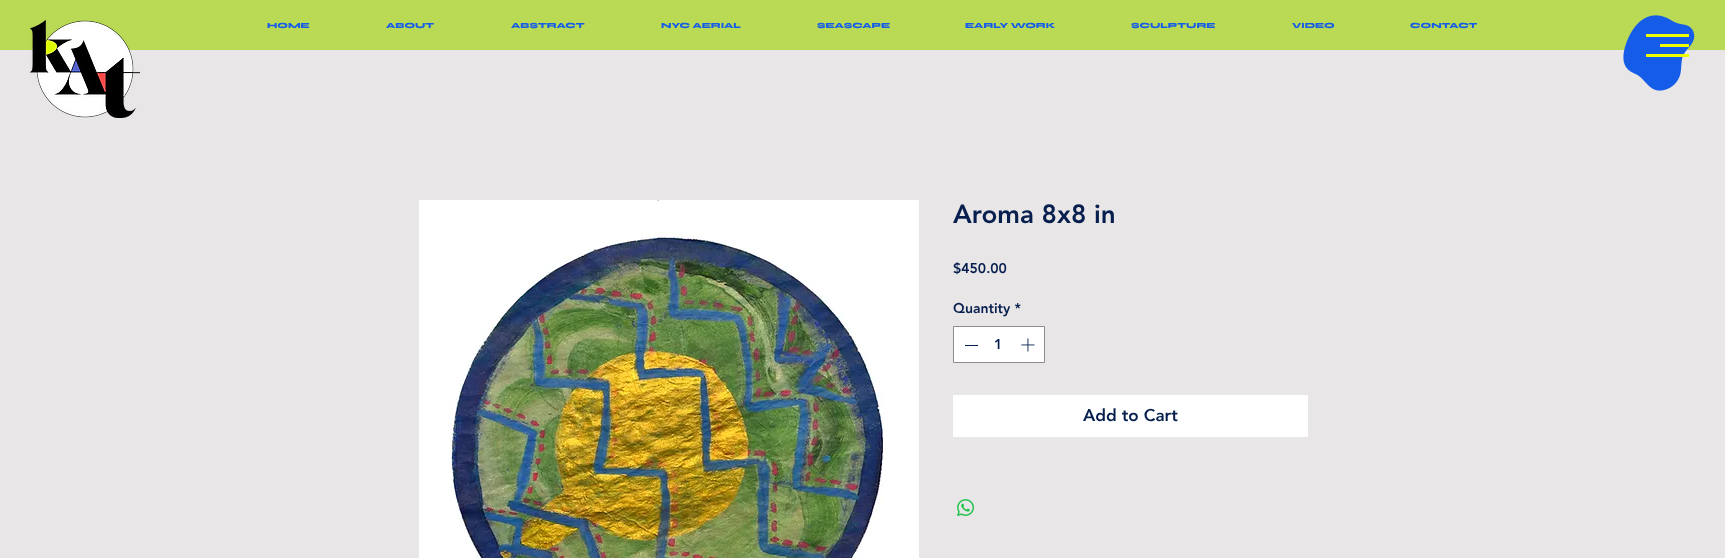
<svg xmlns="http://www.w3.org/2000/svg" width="1725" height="558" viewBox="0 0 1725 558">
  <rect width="100%" height="100%" fill="#e8e6e6"/>
  <path d="M0 0h1725v50H0z" fill="#bada55"/>
  <image x="30" y="20" width="110" height="98" href="img/1.png"/>
  <image x="1623" y="15" width="72" height="76" href="img/2.png"/>
  <path d="M1646 34h43v3H1646z" fill="#ef0"/>
  <path d="M1660 44h29v3H1660z" fill="#ef0"/>
  <path d="M1646 54h43v3H1646z" fill="#ef0"/>
  <image x="419" y="200" width="500" height="358" href="img/3.png"/>
  <path d="M953.5 326.5h91v36H953.5z" fill="#fff" stroke="#8d8d8d"/>
  <path d="M965 345h13v1H965z" fill="#071f4e"/>
  <image x="1021" y="338" width="14" height="14" href="img/4.png"/>
  <path d="M953 395h355v42H953z" fill="#fff"/>
  <image x="957" y="499" width="17" height="17" href="img/5.png"/>
  <g font-family="Syne" font-size="8" font-weight="900" fill="#155de9">
    <text x="267" y="28">HOME</text>
    <text x="386" y="28">ABOUT</text>
    <text x="511" y="28">ABSTRACT</text>
    <text x="661" y="28">NYC AERIAL</text>
    <text x="817" y="28">SEASCAPE</text>
    <text x="965" y="28">EARLY WORK</text>
    <text x="1131" y="28">SCULPTURE</text>
    <text x="1292" y="28">VIDEO</text>
    <text x="1410" y="28">CONTACT</text>
  </g>
  <text x="953" y="223" font-family="'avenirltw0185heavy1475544'" font-size="26" font-weight="900" fill="#071f4e">Aroma 8x8 in</text>
  <g font-family="'avenirltw0185heavy1475544'" font-size="14" font-weight="900" fill="#071f4e">
    <text x="953" y="273">$450.00</text>
    <text x="953" y="313">Quantity *</text>
    <text x="994" y="349">1</text>
  </g>
  <text x="1083" y="421" font-family="'avenirltw0185heavy1475544'" font-size="17" font-weight="900" fill="#071f4e">Add to Cart</text>
</svg>
